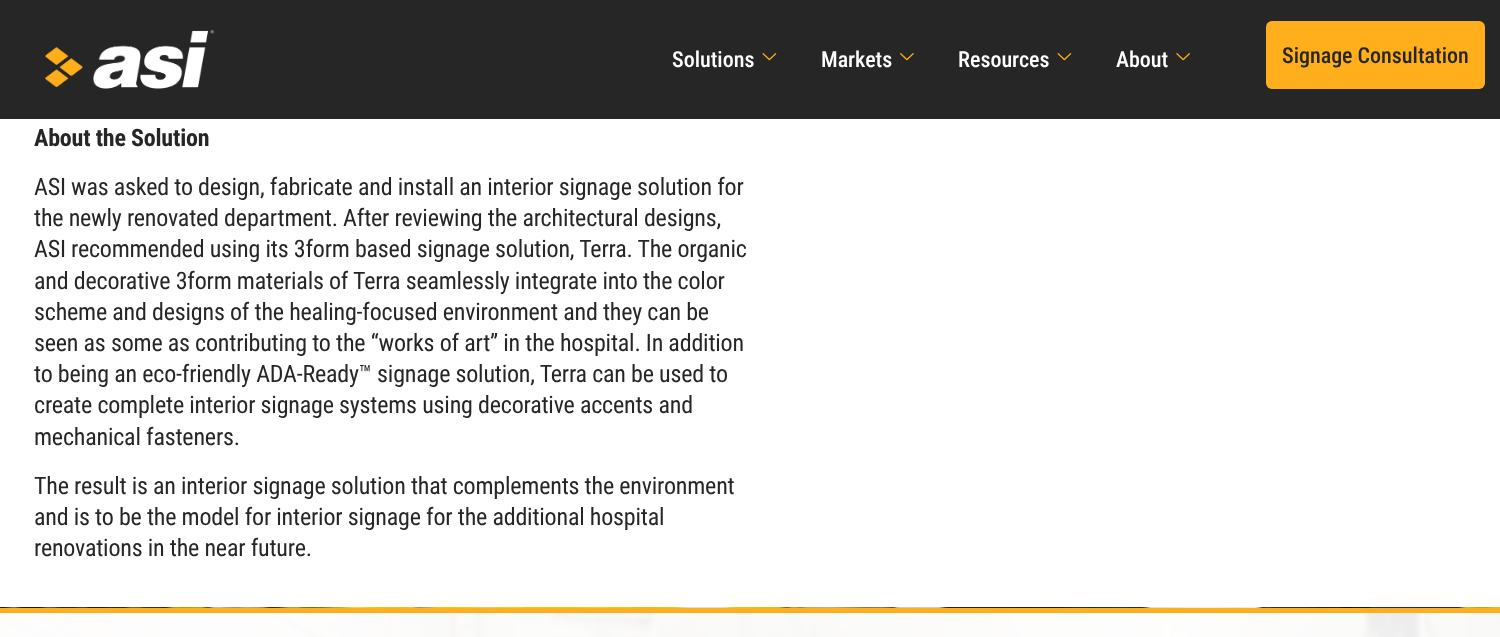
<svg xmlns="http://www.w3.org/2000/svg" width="1500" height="637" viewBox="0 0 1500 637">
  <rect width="100%" height="100%" fill="#fff"/>
  <path d="M0 0h1500v119H0z" fill="#262626"/>
  <image x="45" y="30" width="169" height="59" href="img/1.png"/>
  <image x="762" y="53" width="15" height="8" href="img/2.png"/>
  <image x="900" y="53" width="14" height="8" href="img/3.png"/>
  <image x="1057" y="53" width="15" height="8" href="img/2.png"/>
  <image x="1176" y="53" width="14" height="8" href="img/4.png"/>
  <rect x="1266" y="21" width="219" height="68" rx="6" fill="#ffaf1b"/>
  <image x="0" y="607" width="1500" height="30" href="img/5.png"/>
  <path d="M0 608h1500v5H0z" fill="#ffaf1b"/>
  <path d="M0 613h1500v24H0z" fill="#ffffffeb"/>
  <g font-family="Roboto Condensed" font-size="22" font-weight="500" fill="#fff">
    <text x="672" y="67">Solutions</text>
    <text x="821" y="67">Markets</text>
    <text x="958" y="67">Resources</text>
    <text x="1116" y="67">About</text>
  </g>
  <text x="1282" y="63" font-family="Roboto Condensed" font-size="22" font-weight="500" fill="#262626">Signage Consultation</text>
  <text x="34" y="146" font-family="Roboto Condensed" font-size="24" font-weight="bold" letter-spacing="-0.2" fill="#262626">About the Solution</text>
  <g font-family="Roboto Condensed" font-size="24" letter-spacing="-0.2" fill="#262626">
    <text x="34" y="195">ASI was asked to design, fabricate and install an interior signage solution for</text>
    <text x="34" y="226">the newly renovated department. After reviewing the architectural designs,</text>
    <text x="34" y="257">ASI recommended using its 3form based signage solution, Terra. The organic</text>
    <text x="34" y="289">and decorative 3form materials of Terra seamlessly integrate into the color</text>
    <text x="34" y="320">scheme and designs of the healing-focused environment and they can be</text>
    <text x="34" y="351">seen as some as contributing to the “works of art” in the hospital. In addition</text>
    <text x="34" y="382">to being an eco-friendly ADA-Ready™ signage solution, Terra can be used to</text>
    <text x="34" y="413">create complete interior signage systems using decorative accents and</text>
    <text x="34" y="445">mechanical fasteners.</text>
    <text x="34" y="494">The result is an interior signage solution that complements the environment</text>
    <text x="34" y="525">and is to be the model for interior signage for the additional hospital</text>
    <text x="34" y="556">renovations in the near future.</text>
  </g>
</svg>
